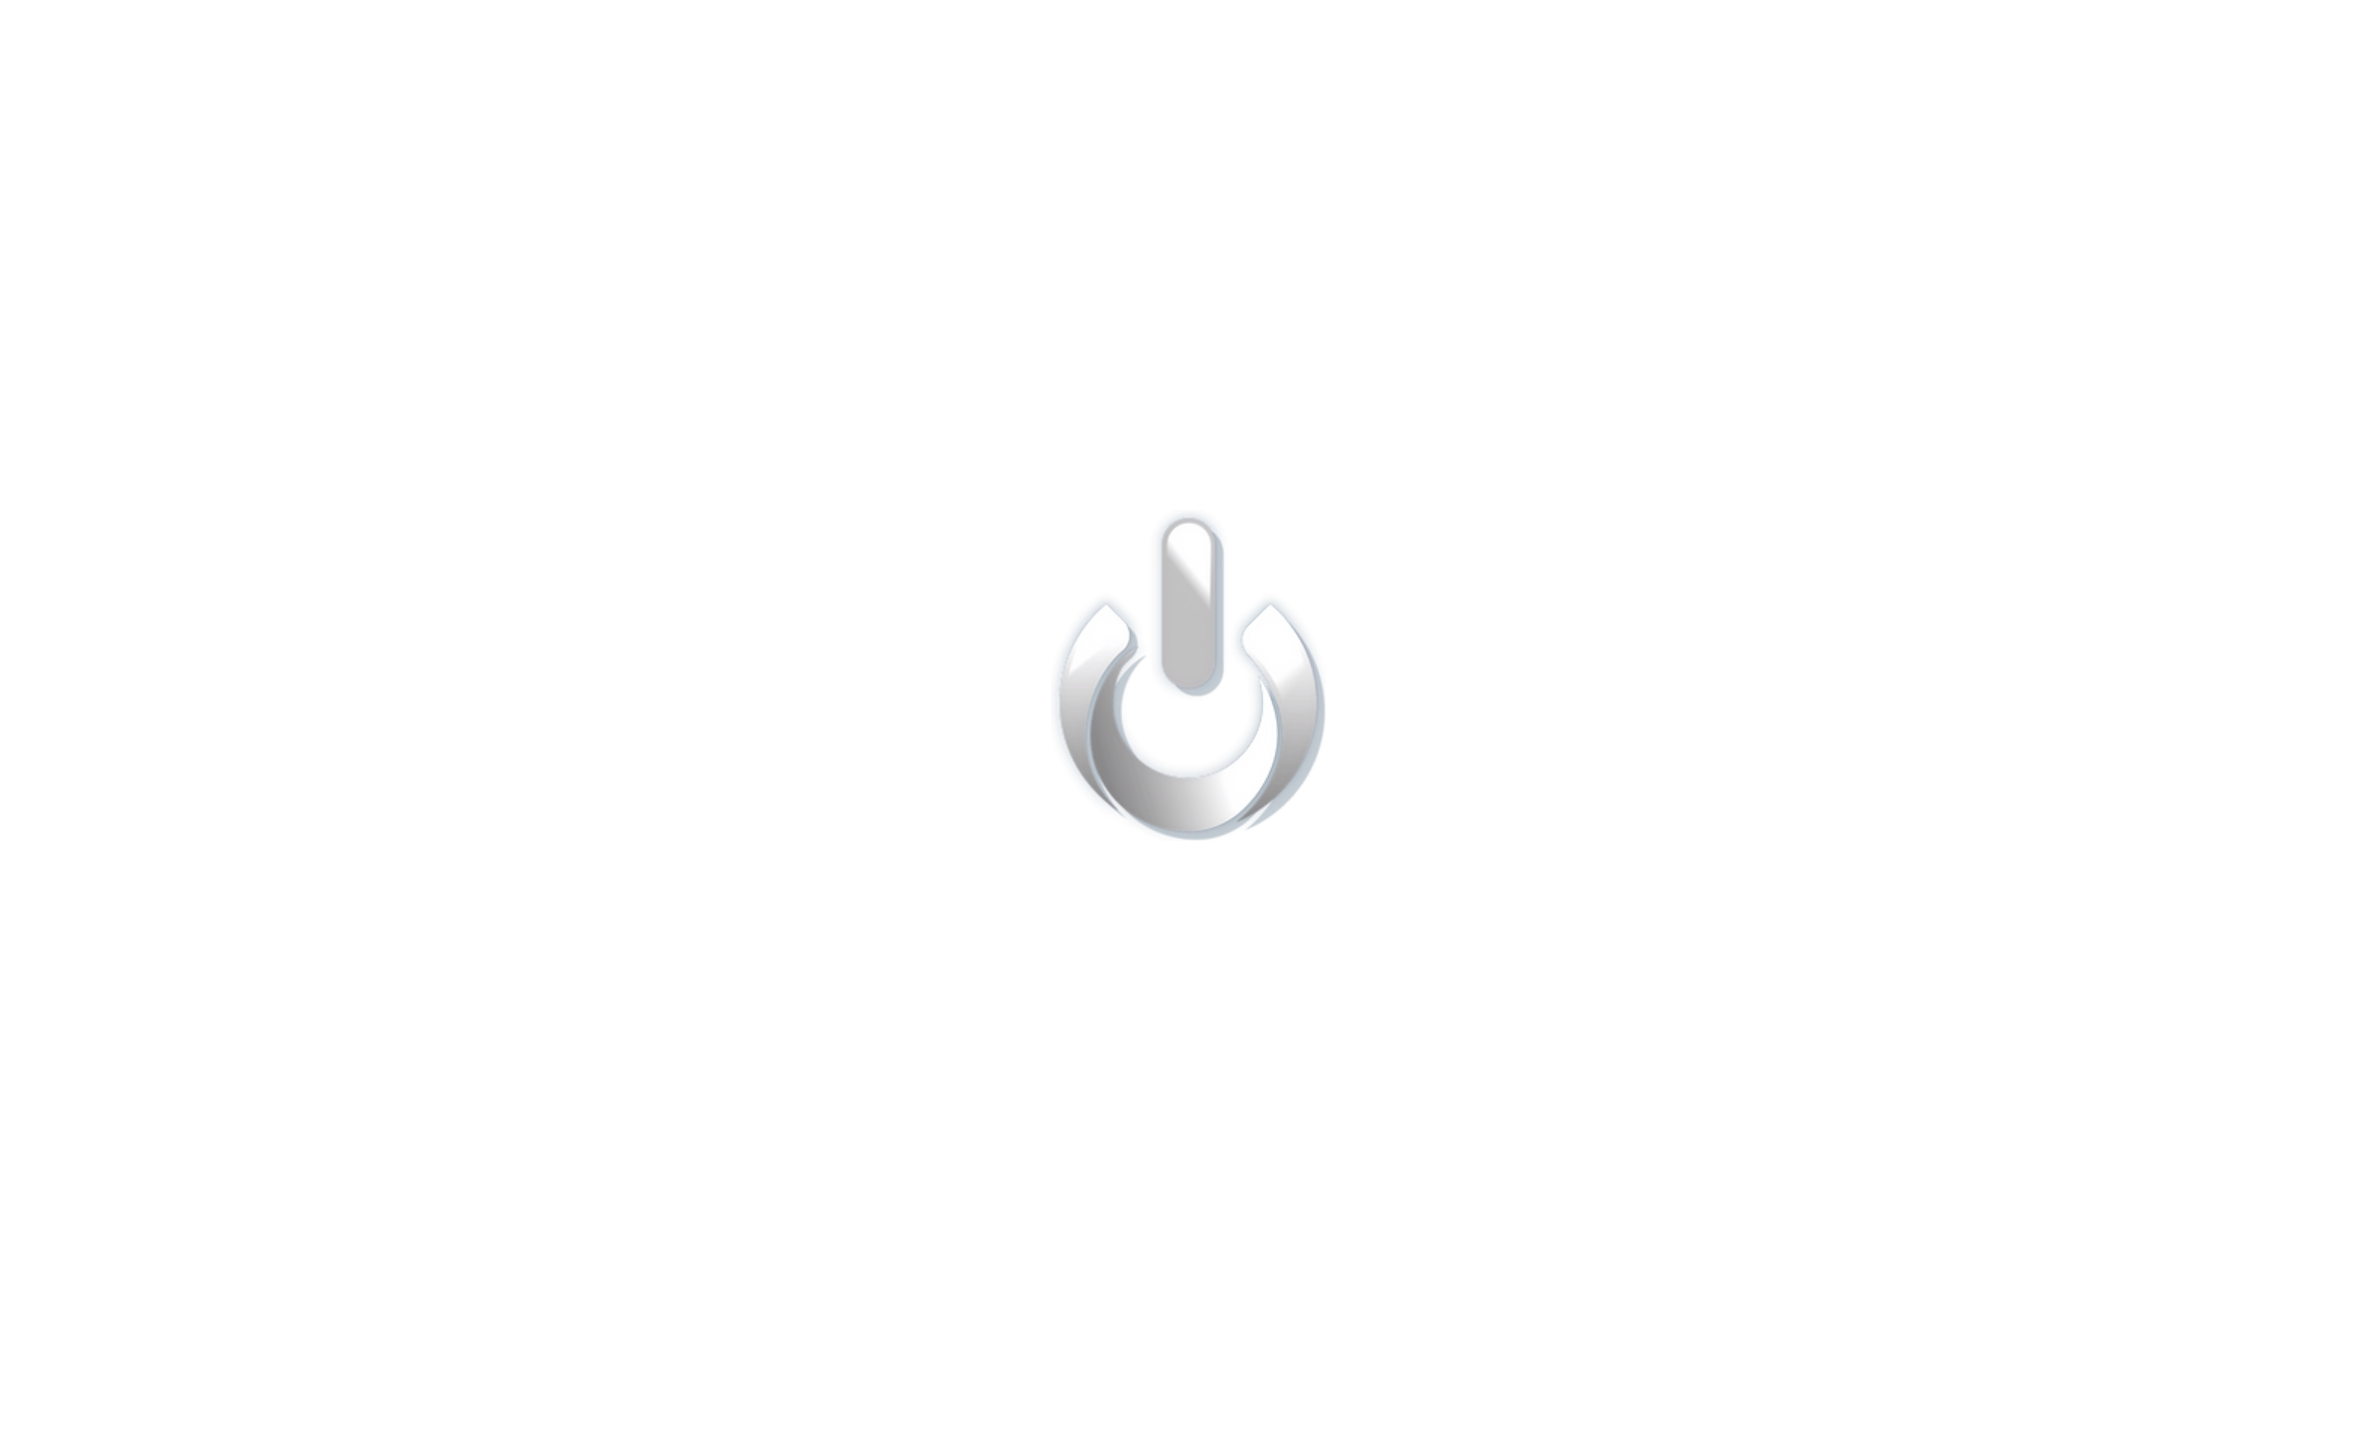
<svg xmlns="http://www.w3.org/2000/svg" width="2375" height="1439" viewBox="0 0 2375 1439">
  <rect width="100%" height="100%" fill="#fff"/>
  <image x="1051" y="510" width="275" height="331" href="img/1.png"/>
</svg>
